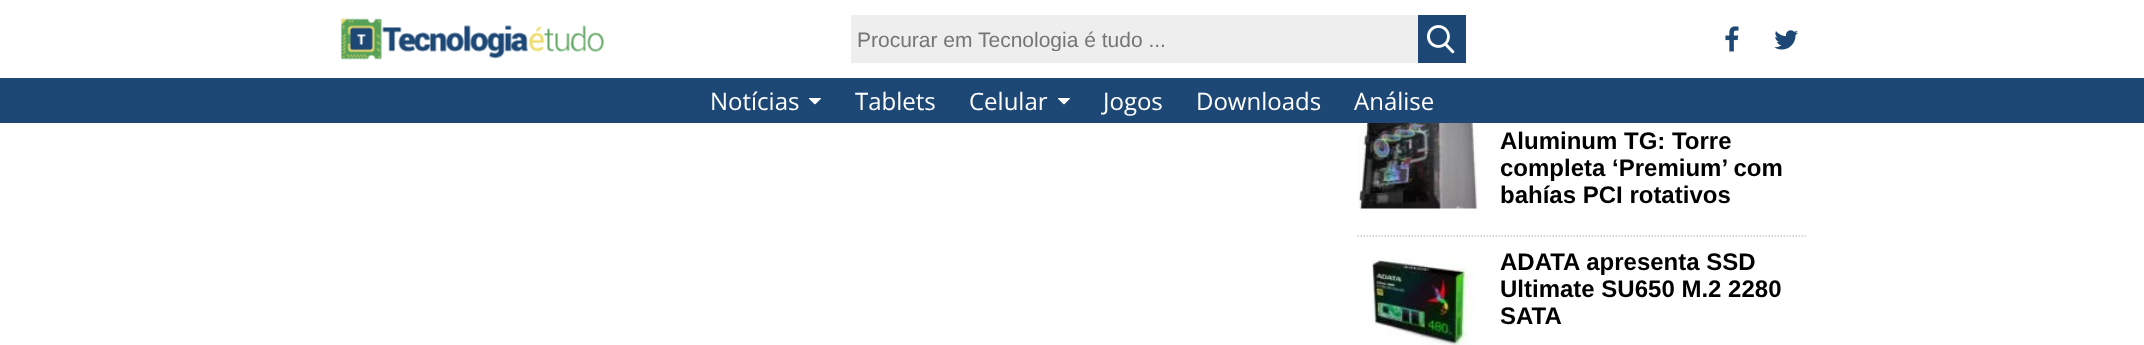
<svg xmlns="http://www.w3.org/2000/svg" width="2144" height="345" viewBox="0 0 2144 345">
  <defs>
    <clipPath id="clip1"><path d="M858 27h552v24H858z"/></clipPath>
  </defs>
  <rect width="100%" height="100%" fill="#fff"/>
  <image x="340" y="18" width="264" height="42" href="img/1.png"/>
  <path d="M851 15h567v48H851z" fill="#eee"/>
  <path d="M1418 15h48v48H1418z" fill="#1d4774"/>
  <image x="1426" y="25" width="29" height="29" href="img/2.png"/>
  <image x="1725" y="26" width="14" height="26" href="img/3.png"/>
  <image x="1774" y="30" width="24" height="20" href="img/4.png"/>
  <path d="M0 78h2144v45H0z" fill="#1d4774"/>
  <image x="809" y="98" width="12" height="7" href="img/5.png"/>
  <image x="1058" y="98" width="12" height="7" href="img/5.png"/>
  <path d="M1357.5 236H1807.5" fill="none" stroke="#ccc" stroke-width="1.5" stroke-dasharray="1.5 1.5"/>
  <image x="1358" y="123" width="120" height="86" href="img/6.png"/>
  <image x="1371" y="259" width="102" height="86" href="img/7.png"/>
  <g clip-path="url(#clip1)">
    <text x="857" y="47" font-family="Liberation Sans" font-size="21" fill="#757575">Procurar em Tecnologia é tudo ...</text>
  </g>
  <g font-family="Open Sans" font-size="24" fill="#fff">
    <text x="710" y="110">Notícias</text>
    <text x="855" y="110">Tablets</text>
    <text x="969" y="110">Celular</text>
    <text x="1103" y="110">Jogos</text>
    <text x="1196" y="110">Downloads</text>
    <text x="1354" y="110">Análise</text>
  </g>
  <g font-family="Liberation Sans" font-size="24" font-weight="bold" fill="#000">
    <text x="1500" y="149">Aluminum TG: Torre</text>
    <text x="1500" y="176">completa ‘Premium’ com</text>
    <text x="1500" y="203">bahías PCI rotativos</text>
    <text x="1500" y="270">ADATA apresenta SSD</text>
    <text x="1500" y="297">Ultimate SU650 M.2 2280</text>
    <text x="1500" y="324">SATA</text>
  </g>
</svg>
